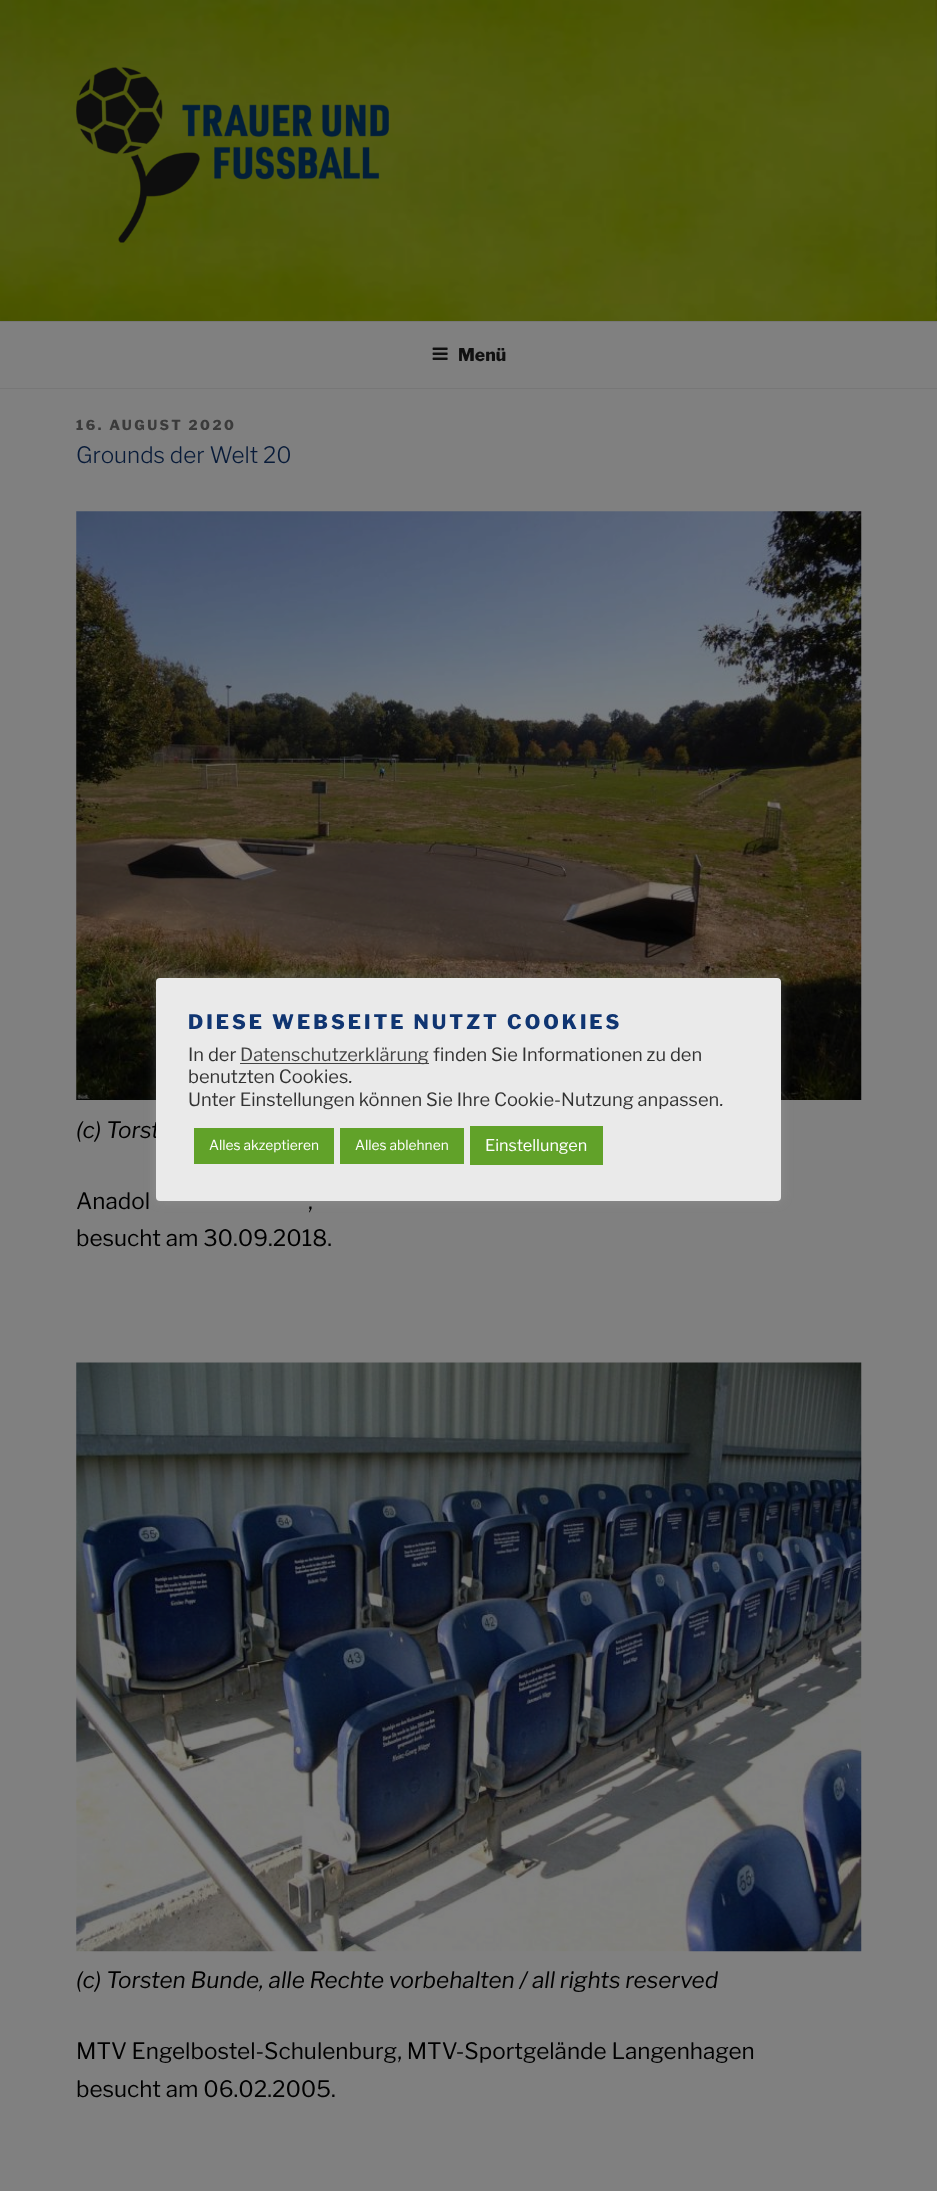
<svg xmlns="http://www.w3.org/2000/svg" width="937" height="2191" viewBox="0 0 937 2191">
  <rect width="100%" height="100%" fill="#fff"/>
  <image x="935" y="0" width="2" height="321" href="img/1.png"/>
  <image x="0" y="0" width="937" height="321" href="img/2.png"/>
  <image x="76" y="67" width="313" height="176" href="img/3.png"/>
  <path d="M0 322h937v66H0z" fill="#808080"/>
  <path d="M0 321h937v1H0z" fill="#777"/>
  <path d="M0 388h937v1H0z" fill="#777"/>
  <image x="432" y="347" width="16" height="13" href="img/4.png"/>
  <path d="M0 389h937v1802H0z" fill="#808080"/>
  <image x="76" y="511" width="786" height="589" href="img/5.png"/>
  <image x="76" y="1362" width="786" height="590" href="img/6.png"/>
  <rect x="156" y="976" width="625" height="224" rx="4" fill="#acabab4d" filter="blur(6px)"/>
  <text x="458" y="361" font-family="Libre Franklin" font-size="17.5" font-weight="100" fill="#111">Menü</text>
  <text x="76" y="430" font-family="Libre Franklin" font-size="13.75" font-weight="100" letter-spacing="2.5" fill="#3b3b3b">16. AUGUST 2020</text>
  <text x="76" y="463" font-family="'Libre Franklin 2'" font-size="22.5" font-weight="100" fill="#081b39">Grounds der Welt 20</text>
  <text x="76" y="1138" font-family="Libre Franklin" font-size="22.5" font-weight="100" font-style="italic" fill="#000">(c) Torst</text>
  <g font-family="'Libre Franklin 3'" font-size="22.5" font-weight="100" fill="#000">
    <text x="76" y="1209">Anadol</text>
    <text x="308" y="1209">,</text>
    <text x="76" y="1246">besucht am 30.09.2018.</text>
  </g>
  <text x="76" y="1988" font-family="Libre Franklin" font-size="22.5" font-weight="100" font-style="italic" fill="#000">(c) Torsten Bunde, alle Rechte vorbehalten / all rights reserved</text>
  <g font-family="'Libre Franklin 3'" font-size="22.5" font-weight="100" fill="#000">
    <text x="76" y="2059">MTV Engelbostel-Schulenburg, MTV-Sportgelände Langenhagen</text>
    <text x="76" y="2097">besucht am 06.02.2005.</text>
  </g>
  <rect x="156" y="978" width="625" height="223" rx="4" fill="#eaeaea"/>
  <text x="188" y="1029" font-family="Libre Franklin" font-size="20" font-weight="100" letter-spacing="3" fill="#103571">DIESE WEBSEITE NUTZT COOKIES</text>
  <text x="188" y="1061" font-family="'Libre Franklin 3'" font-size="18.3" font-weight="100" fill="#333">In der</text>
  <path d="M240 1063h189v1H240z" fill="#444"/>
  <text x="240" y="1061" font-family="'Libre Franklin 3'" font-size="18.3" font-weight="100" fill="#444">Datenschutzerklärung</text>
  <g font-family="'Libre Franklin 3'" font-size="18.3" font-weight="100" fill="#333">
    <text x="433" y="1061">finden Sie Informationen zu den</text>
    <text x="188" y="1083">benutzten Cookies.</text>
    <text x="188" y="1106">Unter Einstellungen können Sie Ihre Cookie-Nutzung anpassen.</text>
  </g>
  <path d="M194 1128h140v36H194z" fill="#61a229"/>
  <text x="209" y="1150" font-family="'Libre Franklin 3'" font-size="13.75" font-weight="100" fill="#fff">Alles akzeptieren</text>
  <path d="M340 1128h124v36H340z" fill="#61a229"/>
  <text x="355" y="1150" font-family="'Libre Franklin 3'" font-size="13.75" font-weight="100" fill="#fff">Alles ablehnen</text>
  <path d="M470 1126h133v39H470z" fill="#61a229"/>
  <text x="485" y="1151" font-family="'Libre Franklin 3'" font-size="16.25" font-weight="100" fill="#fff">Einstellungen</text>
</svg>
